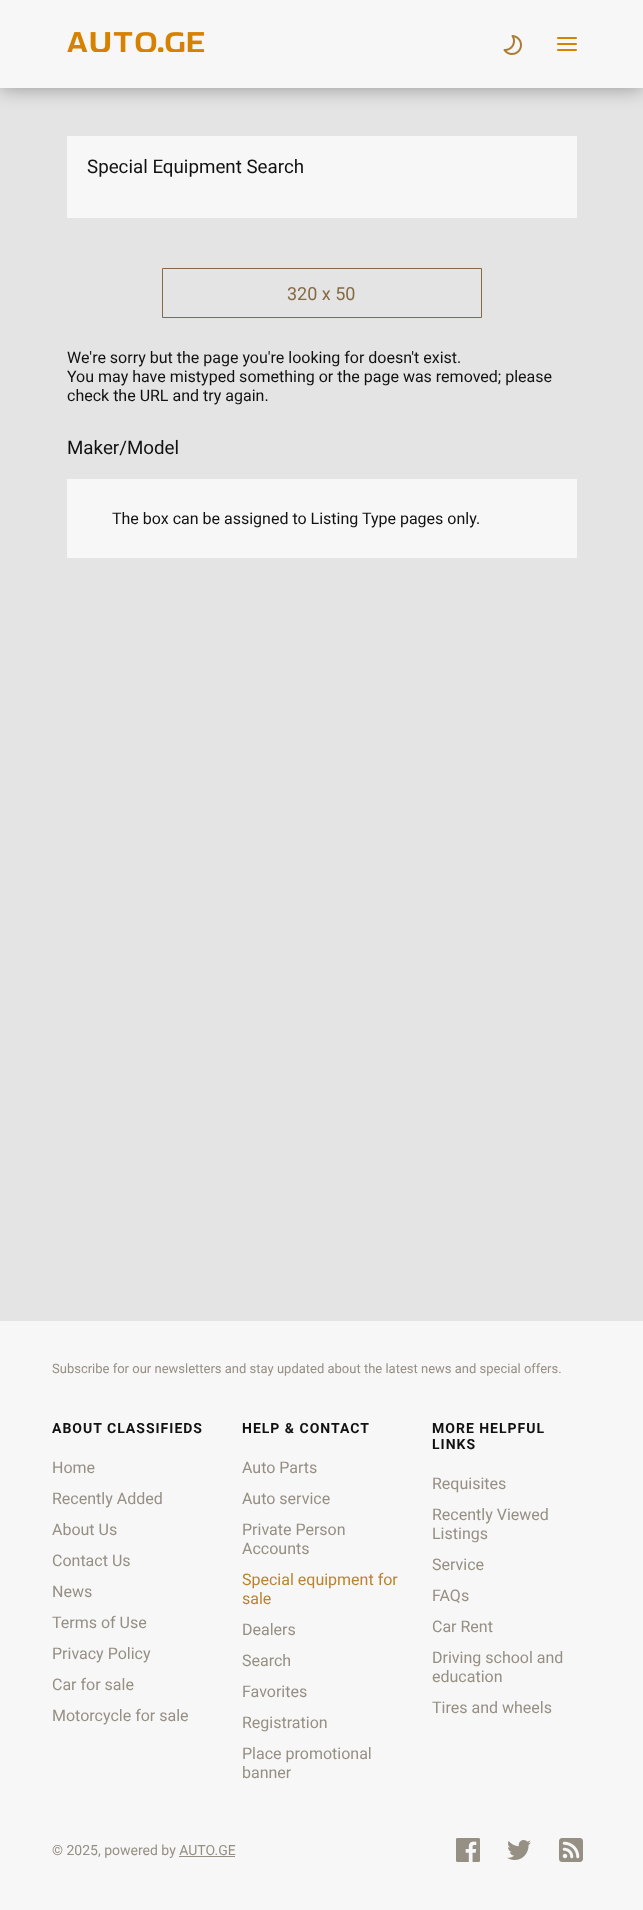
<svg xmlns="http://www.w3.org/2000/svg" width="643" height="1910" viewBox="0 0 643 1910">
  <rect width="100%" height="100%" fill="#e4e4e4"/>
  <path d="M0 0h643v88H0z" fill="#0000005c" filter="blur(10px)"/>
  <path d="M0 0h643v88H0z" fill="#f7f7f7"/>
  <image x="67" y="32" width="137" height="20" href="img/1.png"/>
  <image x="503" y="35" width="19" height="20" href="img/2.png"/>
  <image x="557" y="37" width="20" height="14" href="img/3.png"/>
  <path d="M67 136h510v82H67z" fill="#f7f7f7"/>
  <path d="M162.5 268.5h319v49H162.5z" fill="none" stroke="#856a45"/>
  <path d="M67 479h510v79H67z" fill="#f7f7f7"/>
  <path d="M0 1321h643v589H0z" fill="#f7f7f7"/>
  <path d="M179 1856h56v1H179z" fill="#968f84"/>
  <image x="456" y="1838" width="24" height="24" href="img/4.png"/>
  <image x="507" y="1840" width="24" height="20" href="img/5.png"/>
  <image x="559" y="1838" width="24" height="24" href="img/6.png"/>
  <text x="87" y="173" font-family="Roboto" font-size="18.75" fill="#111">Special Equipment Search</text>
  <text x="287" y="300" font-family="Roboto" font-size="18" fill="#856a45">320 x 50</text>
  <g font-family="Roboto" font-size="16" fill="#111">
    <text x="67" y="363">We're sorry but the page you're looking for doesn't exist.</text>
    <text x="67" y="382">You may have mistyped something or the page was removed; please</text>
    <text x="67" y="401">check the URL and try again.</text>
  </g>
  <text x="67" y="454" font-family="Roboto" font-size="18.75" fill="#111">Maker/Model</text>
  <text x="112" y="524" font-family="Roboto" font-size="16" fill="#111">The box can be assigned to Listing Type pages only.</text>
  <text x="52" y="1373" font-family="Roboto" font-size="13" fill="#968f84">Subscribe for our newsletters and stay updated about the latest news and special offers.</text>
  <text x="52" y="1433" font-family="Roboto" font-size="14" font-weight="bold" letter-spacing="1" fill="#111">ABOUT CLASSIFIEDS</text>
  <g font-family="Roboto" font-size="16" fill="#968f84">
    <text x="52" y="1473">Home</text>
    <text x="52" y="1504">Recently Added</text>
    <text x="52" y="1535">About Us</text>
    <text x="52" y="1566">Contact Us</text>
    <text x="52" y="1597">News</text>
    <text x="52" y="1628">Terms of Use</text>
    <text x="52" y="1659">Privacy Policy</text>
    <text x="52" y="1690">Car for sale</text>
    <text x="52" y="1721">Motorcycle for sale</text>
  </g>
  <text x="242" y="1433" font-family="Roboto" font-size="14" font-weight="bold" letter-spacing="1" fill="#111">HELP &amp; CONTACT</text>
  <g font-family="Roboto" font-size="16" fill="#968f84">
    <text x="242" y="1473">Auto Parts</text>
    <text x="242" y="1504">Auto service</text>
    <text x="242" y="1535">Private Person</text>
    <text x="242" y="1554">Accounts</text>
  </g>
  <g font-family="Roboto" font-size="16" fill="#bb8330">
    <text x="242" y="1585">Special equipment for</text>
    <text x="242" y="1604">sale</text>
  </g>
  <g font-family="Roboto" font-size="16" fill="#968f84">
    <text x="242" y="1635">Dealers</text>
    <text x="242" y="1666">Search</text>
    <text x="242" y="1697">Favorites</text>
    <text x="242" y="1728">Registration</text>
    <text x="242" y="1759">Place promotional</text>
    <text x="242" y="1778">banner</text>
  </g>
  <g font-family="Roboto" font-size="14" font-weight="bold" letter-spacing="1" fill="#111">
    <text x="432" y="1433">MORE HELPFUL</text>
    <text x="432" y="1449">LINKS</text>
  </g>
  <g font-family="Roboto" font-size="16" fill="#968f84">
    <text x="432" y="1489">Requisites</text>
    <text x="432" y="1520">Recently Viewed</text>
    <text x="432" y="1539">Listings</text>
    <text x="432" y="1570">Service</text>
    <text x="432" y="1601">FAQs</text>
    <text x="432" y="1632">Car Rent</text>
    <text x="432" y="1663">Driving school and</text>
    <text x="432" y="1682">education</text>
    <text x="432" y="1713">Tires and wheels</text>
  </g>
  <text x="52" y="1855" font-family="Roboto" font-size="14" fill="#968f84">© 2025, powered by AUTO.GE</text>
</svg>
